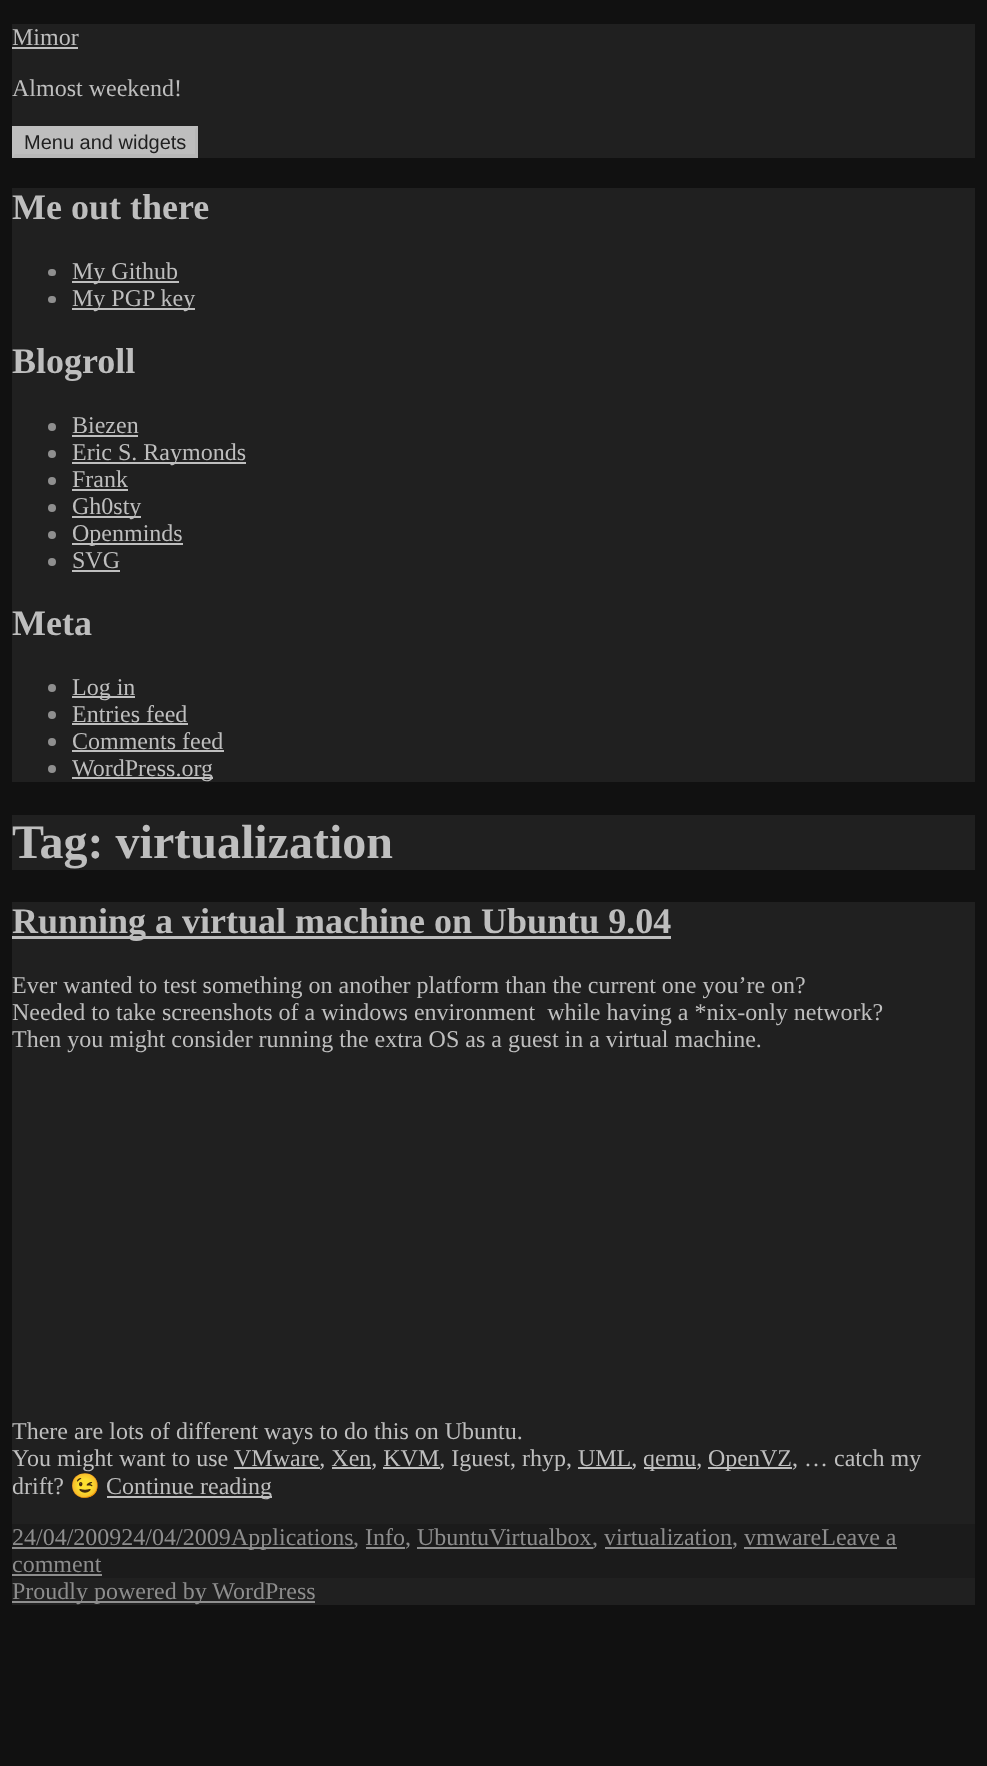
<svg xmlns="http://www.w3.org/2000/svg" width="987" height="1766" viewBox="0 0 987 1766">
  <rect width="100%" height="100%" fill="#111"/>
  <path d="M12 24h963v134H12z" fill="#202020"/>
  <path d="M12 47h66v2H12z" fill="#bebebe"/>
  <path d="M12 126h186v32H12z" fill="#bebebe"/>
  <path d="M198 126V157.5L195 154.5V129Z" fill="#b8b8b8"/>
  <path d="M198 158H12L15 154H195Z" fill="#b8b8b8"/>
  <path d="M12 188h963v594H12z" fill="#202020"/>
  <rect x="48" y="269" width="8" height="7" rx="3.5" fill="#8f8f8f"/>
  <path d="M72 281h107v2H72z" fill="#bebebe"/>
  <rect x="48" y="296" width="8" height="7" rx="3.5" fill="#8f8f8f"/>
  <path d="M72 308h123v2H72z" fill="#bebebe"/>
  <circle cx="52" cy="427" r="4" fill="#8f8f8f"/>
  <path d="M72 435h66v2H72z" fill="#bebebe"/>
  <circle cx="52" cy="454" r="4" fill="#8f8f8f"/>
  <path d="M72 462h174v2H72z" fill="#bebebe"/>
  <circle cx="52" cy="481" r="4" fill="#8f8f8f"/>
  <path d="M72 489h56v2H72z" fill="#bebebe"/>
  <circle cx="52" cy="508" r="4" fill="#8f8f8f"/>
  <path d="M72 516h69v2H72z" fill="#bebebe"/>
  <circle cx="52" cy="535" r="4" fill="#8f8f8f"/>
  <path d="M72 543h111v2H72z" fill="#bebebe"/>
  <circle cx="52" cy="562" r="4" fill="#8f8f8f"/>
  <path d="M72 570h48v2H72z" fill="#bebebe"/>
  <circle cx="52" cy="688" r="4" fill="#8f8f8f"/>
  <path d="M72 696h63v2H72z" fill="#bebebe"/>
  <circle cx="52" cy="715" r="4" fill="#8f8f8f"/>
  <path d="M72 723h116v2H72z" fill="#bebebe"/>
  <circle cx="52" cy="742" r="4" fill="#8f8f8f"/>
  <path d="M72 750h152v2H72z" fill="#bebebe"/>
  <circle cx="52" cy="769" r="4" fill="#8f8f8f"/>
  <path d="M72 777h141v2H72z" fill="#bebebe"/>
  <path d="M12 815h963v55H12z" fill="#202020"/>
  <path d="M12 902h963v622H12z" fill="#202020"/>
  <path d="M12 936h659v3H12z" fill="#bebebe"/>
  <path d="M234 1467h86v2H234z" fill="#bebebe"/>
  <path d="M644 1467h52v2H644z" fill="#bebebe"/>
  <path d="M708 1467h84v2H708z" fill="#bebebe"/>
  <path d="M332 1467h39v2H332z" fill="#bebebe"/>
  <path d="M383 1467h57v2H383z" fill="#bebebe"/>
  <path d="M578 1467h54v2H578z" fill="#bebebe"/>
  <path d="M107 1496h165v2H107z" fill="#bebebe"/>
  <path d="M12 1524h963v54H12z" fill="#1b1b1b"/>
  <path d="M12 1547h342v2H12z" fill="#8d8d8d"/>
  <path d="M366 1547h39v2H366z" fill="#8d8d8d"/>
  <path d="M417 1547h176v2H417z" fill="#8d8d8d"/>
  <path d="M605 1547h127v2H605z" fill="#8d8d8d"/>
  <path d="M744 1547h153v2H744z" fill="#8d8d8d"/>
  <path d="M12 1574h90v2H12z" fill="#8d8d8d"/>
  <path d="M12 1578h963v27H12z" fill="#202020"/>
  <path d="M12 1601h303v2H12z" fill="#8f8f8f"/>
  <g font-family="Liberation Serif" font-size="24" fill="#bebebe">
    <text x="12" y="45">Mimor</text>
    <text x="12" y="96">Almost weekend!</text>
  </g>
  <text x="24" y="149" font-family="Liberation Sans" font-size="20" fill="#202020">Menu and widgets</text>
  <text x="12" y="219" font-family="Liberation Serif" font-size="36" font-weight="bold" fill="#bebebe">Me out there</text>
  <g font-family="Liberation Serif" font-size="24" fill="#bebebe">
    <text x="72" y="279">My Github</text>
    <text x="72" y="306">My PGP key</text>
  </g>
  <text x="12" y="373" font-family="Liberation Serif" font-size="36" font-weight="bold" fill="#bebebe">Blogroll</text>
  <g font-family="Liberation Serif" font-size="24" fill="#bebebe">
    <text x="72" y="433">Biezen</text>
    <text x="72" y="460">Eric S. Raymonds</text>
    <text x="72" y="487">Frank</text>
    <text x="72" y="514">Gh0sty</text>
    <text x="72" y="541">Openminds</text>
    <text x="72" y="568">SVG</text>
  </g>
  <text x="12" y="635" font-family="Liberation Serif" font-size="36" font-weight="bold" fill="#bebebe">Meta</text>
  <g font-family="Liberation Serif" font-size="24" fill="#bebebe">
    <text x="72" y="695">Log in</text>
    <text x="72" y="722">Entries feed</text>
    <text x="72" y="749">Comments feed</text>
    <text x="72" y="776">WordPress.org</text>
  </g>
  <text x="12" y="858" font-family="Liberation Serif" font-size="48" font-weight="bold" fill="#bebebe">Tag: virtualization</text>
  <text x="12" y="933" font-family="Liberation Serif" font-size="36" font-weight="bold" fill="#bebebe">Running a virtual machine on Ubuntu 9.04</text>
  <g font-family="Liberation Serif" font-size="24" fill="#bebebe">
    <text x="12" y="993">Ever wanted to test something on another platform than the current one you’re on?</text>
    <text x="12" y="1020" xml:space="preserve">Needed to take screenshots of a windows environment  while having a *nix-only network?</text>
    <text x="12" y="1047">Then you might consider running the extra OS as a guest in a virtual machine.</text>
    <text x="12" y="1439">There are lots of different ways to do this on Ubuntu.</text>
    <text x="12" y="1466">You might want to use</text>
    <text x="234" y="1466">VMware, Xen, KVM, Iguest, rhyp, UML,</text>
    <text x="643" y="1466">qemu,</text>
    <text x="708" y="1466">OpenVZ, … catch my</text>
    <text x="12" y="1494">drift?</text>
  </g>
  <text x="70" y="1494" font-family="Noto Color Emoji" font-size="24" fill="#bebebe">😉</text>
  <text x="106" y="1494" font-family="Liberation Serif" font-size="24" fill="#bebebe">Continue reading</text>
  <g font-family="Liberation Serif" font-size="24" fill="#8d8d8d">
    <text x="12" y="1545">24/04/200924/04/2009</text>
    <text x="231" y="1545">Applications</text>
    <text x="353" y="1545">, Info, UbuntuVirtualbox</text>
    <text x="592" y="1545">,</text>
    <text x="604" y="1545">virtualization, vmwareLeave a</text>
    <text x="12" y="1572">comment</text>
    <text x="12" y="1599">Proudly powered by WordPress</text>
  </g>
</svg>
